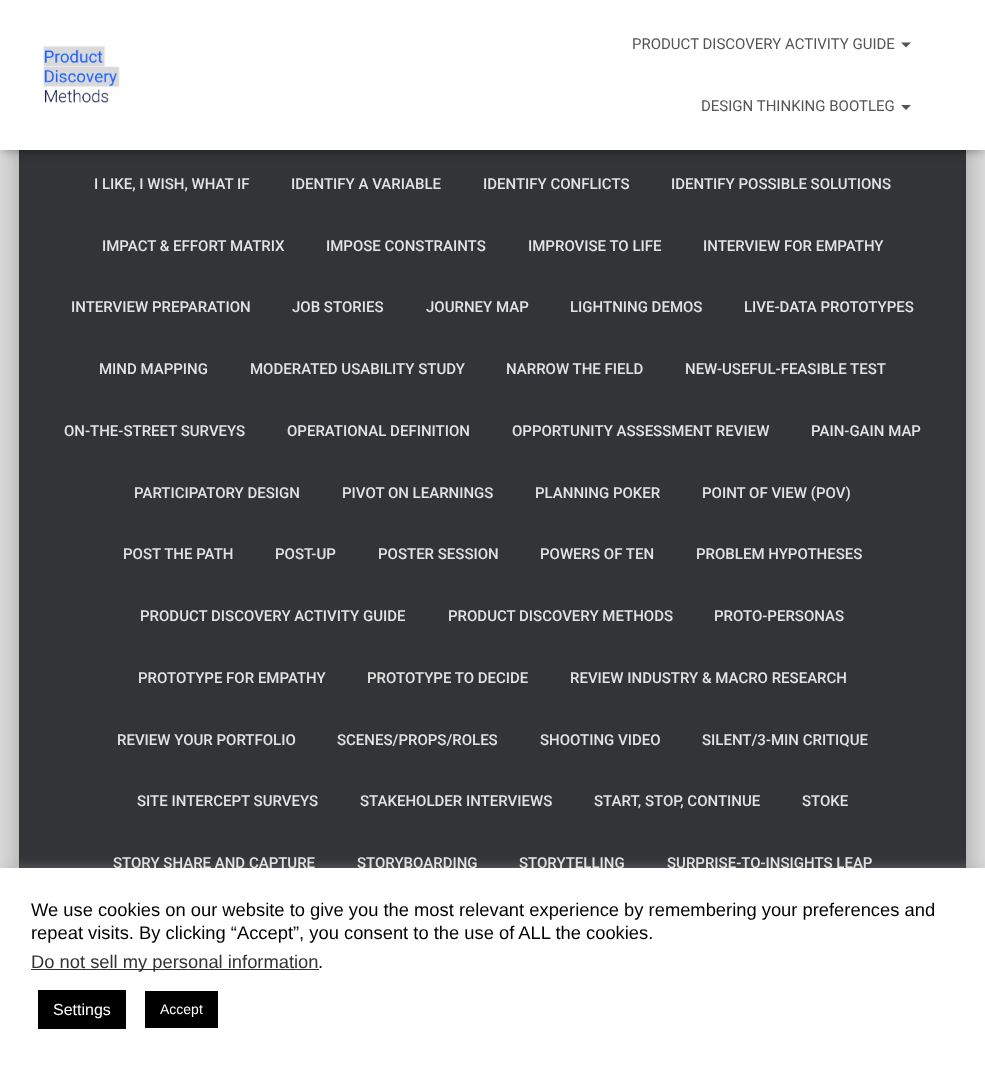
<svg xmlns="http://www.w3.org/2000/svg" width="985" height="1065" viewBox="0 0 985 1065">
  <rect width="100%" height="100%" fill="#e5e5e5"/>
  <rect x="25" y="-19" width="935" height="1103" rx="1" fill="#00000033" filter="blur(6px)"/>
  <rect x="13" y="-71" width="960" height="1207" rx="14" fill="#0000001f" filter="blur(19px)"/>
  <rect x="16" y="-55" width="953" height="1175" rx="10" fill="#00000024" filter="blur(15px)"/>
  <path d="M19 150h947v718H19z" fill="#323437"/>
  <path d="M3 8h980v145H3z" fill="#0000001a" filter="blur(3px)"/>
  <path d="M0 1h985v150H0z" fill="#0000001f" filter="blur(6px)"/>
  <path d="M8 9h970v135H8z" fill="#0000006b" filter="blur(6px)"/>
  <path d="M0 0h985v150H0z" fill="#fff"/>
  <image x="43" y="46" width="77" height="57" href="img/1.png"/>
  <path d="M901 42.5H911L906 47.5Z" fill="#555"/>
  <path d="M901 105H911L906 110Z" fill="#555"/>
  <path d="M0 866h985v198H0z" fill="#acabab4d" filter="blur(6px)"/>
  <g font-family="Roboto" font-size="15" fill="#555">
    <text x="632" y="49">PRODUCT DISCOVERY ACTIVITY GUIDE</text>
    <text x="701" y="111">DESIGN THINKING BOOTLEG</text>
  </g>
  <g font-family="Roboto" font-size="15" font-weight="500" fill="#e2e3e3">
    <text x="94" y="189">I LIKE, I WISH, WHAT IF</text>
    <text x="291" y="189">IDENTIFY A VARIABLE</text>
    <text x="483" y="189">IDENTIFY CONFLICTS</text>
    <text x="671" y="189">IDENTIFY POSSIBLE SOLUTIONS</text>
    <text x="102" y="251">IMPACT &amp; EFFORT MATRIX</text>
    <text x="326" y="251">IMPOSE CONSTRAINTS</text>
    <text x="528" y="251">IMPROVISE TO LIFE</text>
    <text x="703" y="251">INTERVIEW FOR EMPATHY</text>
    <text x="71" y="312">INTERVIEW PREPARATION</text>
    <text x="292" y="312">JOB STORIES</text>
    <text x="426" y="312">JOURNEY MAP</text>
    <text x="570" y="312">LIGHTNING DEMOS</text>
    <text x="744" y="312">LIVE-DATA PROTOTYPES</text>
    <text x="99" y="374">MIND MAPPING</text>
    <text x="250" y="374">MODERATED USABILITY STUDY</text>
    <text x="506" y="374">NARROW THE FIELD</text>
    <text x="685" y="374">NEW-USEFUL-FEASIBLE TEST</text>
    <text x="64" y="436">ON-THE-STREET SURVEYS</text>
    <text x="287" y="436">OPERATIONAL DEFINITION</text>
    <text x="512" y="436">OPPORTUNITY ASSESSMENT REVIEW</text>
    <text x="811" y="436">PAIN-GAIN MAP</text>
    <text x="134" y="498">PARTICIPATORY DESIGN</text>
    <text x="342" y="498">PIVOT ON LEARNINGS</text>
    <text x="535" y="498">PLANNING POKER</text>
    <text x="702" y="498">POINT OF VIEW (POV)</text>
    <text x="123" y="559">POST THE PATH</text>
    <text x="275" y="559">POST-UP</text>
    <text x="378" y="559">POSTER SESSION</text>
    <text x="540" y="559">POWERS OF TEN</text>
    <text x="696" y="559">PROBLEM HYPOTHESES</text>
    <text x="140" y="621">PRODUCT DISCOVERY ACTIVITY GUIDE</text>
    <text x="448" y="621">PRODUCT DISCOVERY METHODS</text>
    <text x="714" y="621">PROTO-PERSONAS</text>
    <text x="138" y="683">PROTOTYPE FOR EMPATHY</text>
    <text x="367" y="683">PROTOTYPE TO DECIDE</text>
    <text x="570" y="683">REVIEW INDUSTRY &amp; MACRO RESEARCH</text>
    <text x="117" y="745">REVIEW YOUR PORTFOLIO</text>
    <text x="337" y="745">SCENES/PROPS/ROLES</text>
    <text x="540" y="745">SHOOTING VIDEO</text>
    <text x="702" y="745">SILENT/3-MIN CRITIQUE</text>
    <text x="137" y="806">SITE INTERCEPT SURVEYS</text>
    <text x="360" y="806">STAKEHOLDER INTERVIEWS</text>
    <text x="594" y="806">START, STOP, CONTINUE</text>
    <text x="802" y="806">STOKE</text>
    <text x="113" y="868">STORY SHARE AND CAPTURE</text>
    <text x="357" y="868">STORYBOARDING</text>
    <text x="519" y="868">STORYTELLING</text>
    <text x="667" y="868">SURPRISE-TO-INSIGHTS LEAP</text>
  </g>
  <path d="M0 868h985v197H0z" fill="#fff"/>
  <g font-family="Liberation Sans" font-size="18.35" fill="#000">
    <text x="31" y="916">We use cookies on our website to give you the most relevant experience by remembering your preferences and</text>
    <text x="31" y="939">repeat visits. By clicking “Accept”, you consent to the use of ALL the cookies.</text>
  </g>
  <path d="M31 969h288v1H31z" fill="#333"/>
  <text x="31" y="968" font-family="Liberation Sans" font-size="18.35" fill="#333">Do not sell my personal information</text>
  <text x="318" y="968" font-family="Liberation Sans" font-size="18.35" fill="#000">.</text>
  <path d="M38 990h88v39H38z" fill="#000"/>
  <text x="53" y="1015" font-family="Liberation Sans" font-size="16" fill="#fff">Settings</text>
  <path d="M145 991h73v37H145z" fill="#000"/>
  <text x="160" y="1014" font-family="Liberation Sans" font-size="14" fill="#fff">Accept</text>
</svg>
